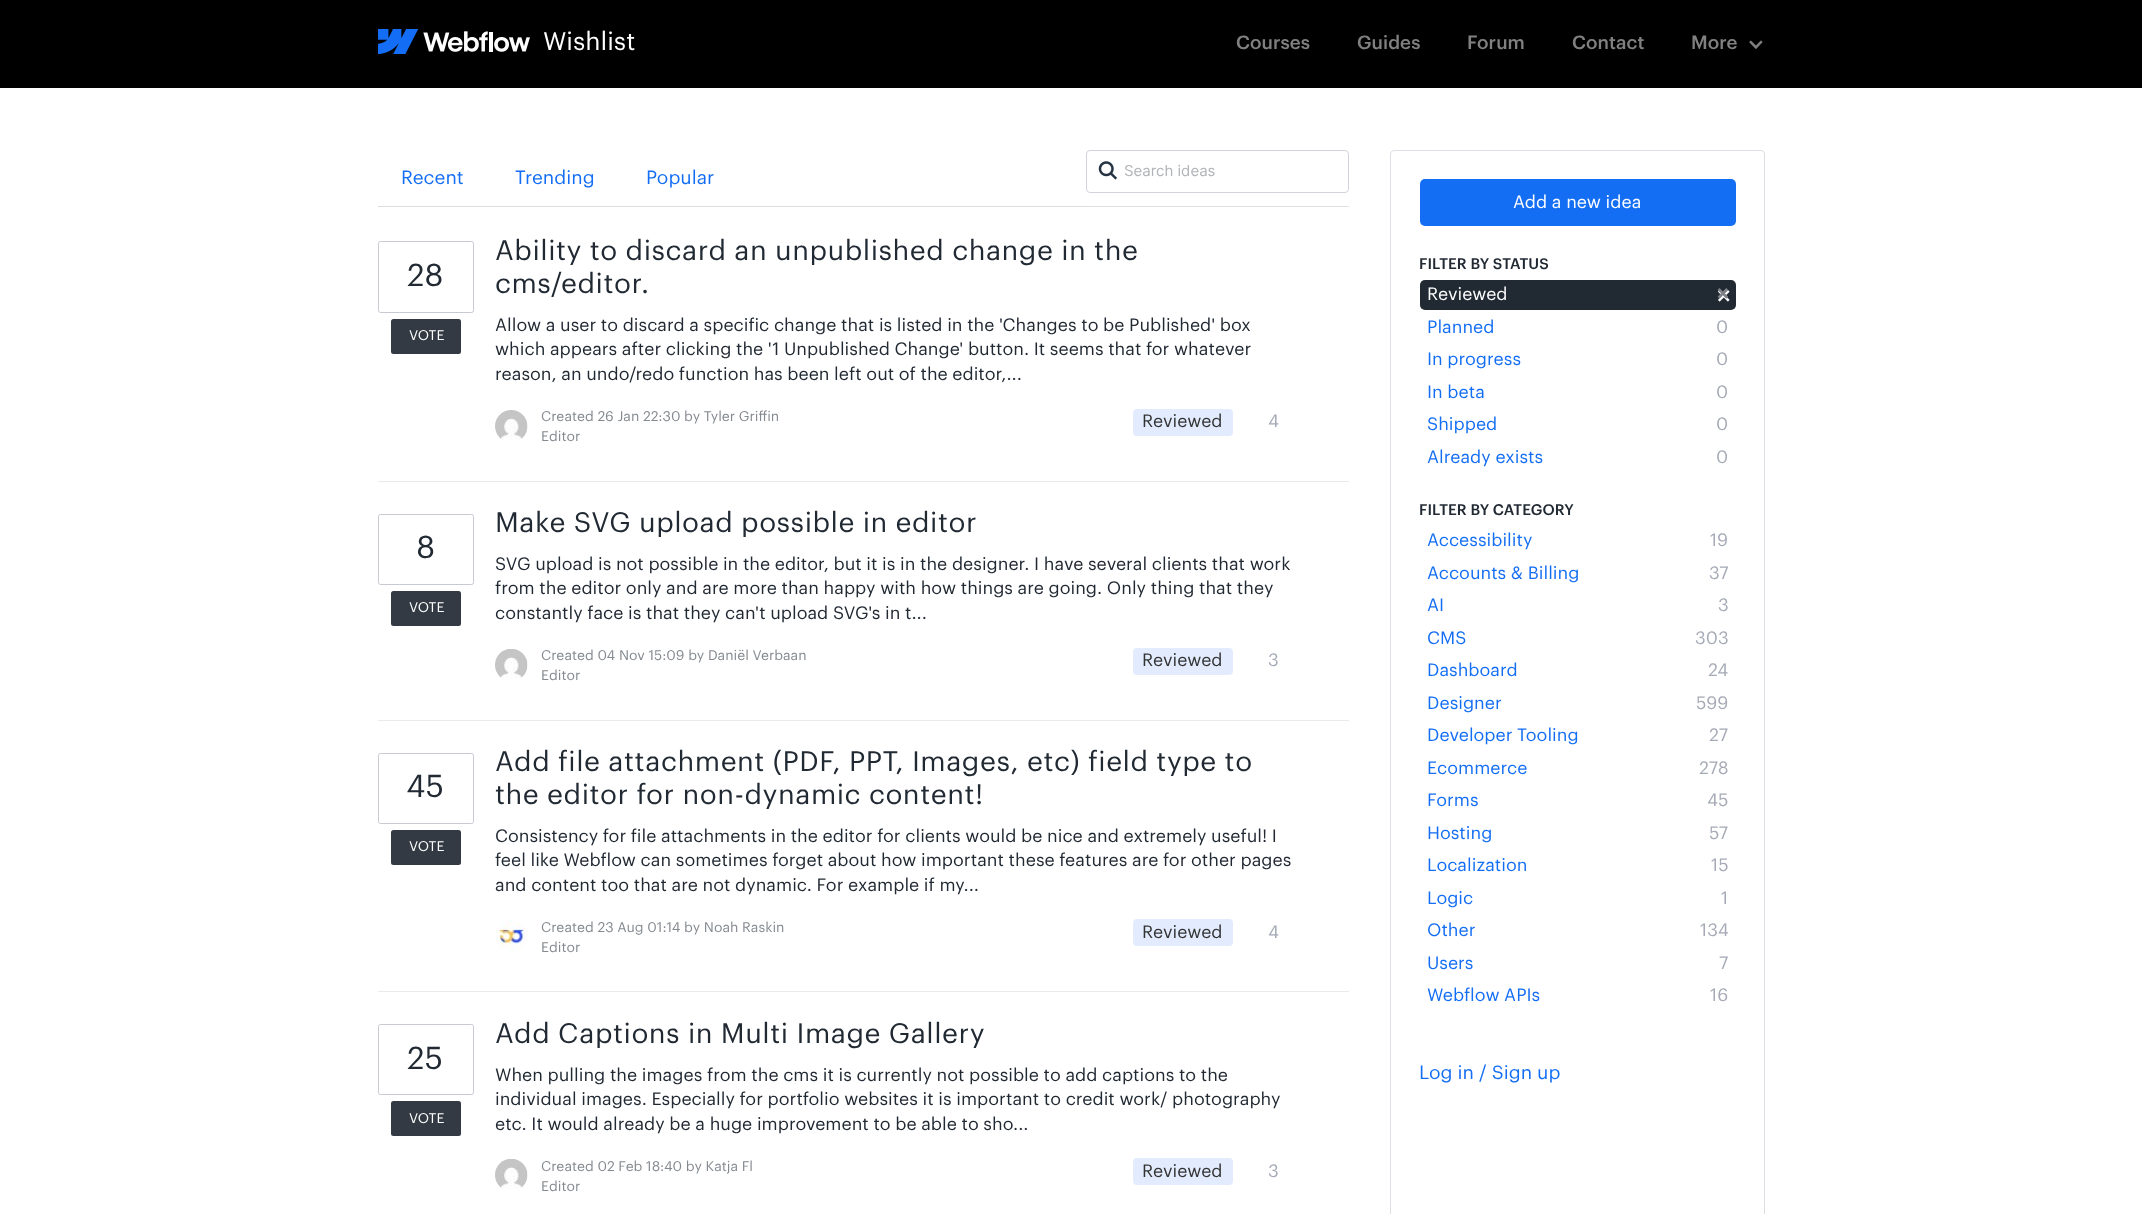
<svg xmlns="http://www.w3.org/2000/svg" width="2142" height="1214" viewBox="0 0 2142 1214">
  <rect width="100%" height="100%" fill="#fff"/>
  <path d="M0 0h2142v88H0z" fill="#000"/>
  <image x="378" y="29" width="152" height="25" href="img/1.png"/>
  <image x="1749" y="40" width="14" height="10" href="img/2.png"/>
  <path d="M378 206h708v1H378z" fill="#ddd"/>
  <path d="M1086 206h263v1H1086z" fill="#e1e1e1"/>
  <rect x="1086.5" y="150.5" width="262" height="42" rx="3.5" fill="none" stroke="#d2d4db"/>
  <image x="1098" y="161" width="19" height="19" href="img/3.png"/>
  <path d="M378 481h971v1H378z" fill="#e9eaed"/>
  <rect x="378.5" y="241.5" width="95" height="71" rx="2" fill="none" stroke="#c7cad2"/>
  <rect x="391" y="319" width="70" height="35" rx="2.5" fill="#333a43"/>
  <image x="495" y="410" width="33" height="30" href="img/4.png"/>
  <rect x="1133" y="409" width="100" height="27" rx="4" fill="#e3ecfe"/>
  <path d="M378 720h971v1H378z" fill="#e9eaed"/>
  <rect x="378.5" y="514.5" width="95" height="70" rx="2" fill="none" stroke="#c7cad2"/>
  <rect x="391" y="591" width="70" height="35" rx="2.5" fill="#333a43"/>
  <image x="495" y="649" width="33" height="30" href="img/5.png"/>
  <rect x="1133" y="648" width="100" height="27" rx="4" fill="#e3ecfe"/>
  <path d="M378 991h971v1H378z" fill="#e9eaed"/>
  <rect x="378.5" y="753.5" width="95" height="70" rx="2" fill="none" stroke="#c7cad2"/>
  <rect x="391" y="830" width="70" height="35" rx="2.5" fill="#333a43"/>
  <image x="495" y="920" width="32" height="32" href="img/6.png"/>
  <rect x="1133" y="919" width="100" height="27" rx="4" fill="#e3ecfe"/>
  <rect x="378.5" y="1024.5" width="95" height="70" rx="2" fill="none" stroke="#c7cad2"/>
  <rect x="391" y="1101" width="70" height="35" rx="2.5" fill="#333a43"/>
  <image x="495" y="1159" width="33" height="30" href="img/5.png"/>
  <rect x="1133" y="1158" width="100" height="27" rx="4" fill="#e3ecfe"/>
  <rect x="1390.5" y="150.5" width="374" height="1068" rx="3.5" fill="none" stroke="#dddfe4"/>
  <rect x="1420" y="179" width="316" height="47" rx="5" fill="#146ef4"/>
  <rect x="1420" y="280" width="316" height="30" rx="5" fill="#212933"/>
  <image x="1718" y="290" width="12" height="12" href="img/7.png"/>
  <text x="543" y="50" font-family="Graphik" font-size="25" fill="#fff">Wishlist</text>
  <g font-family="Graphik" font-size="18.75" font-weight="500" fill="#808080">
    <text x="1236" y="49">Courses</text>
    <text x="1357" y="49">Guides</text>
    <text x="1467" y="49">Forum</text>
    <text x="1572" y="49">Contact</text>
    <text x="1691" y="49">More</text>
  </g>
  <g font-family="Graphik" font-size="18.75" fill="#146ef4">
    <text x="401" y="184">Recent</text>
    <text x="515" y="184">Trending</text>
    <text x="646" y="184">Popular</text>
  </g>
  <text x="1124" y="176" font-family="Inter" font-size="15" fill="#b1b4b8">Search ideas</text>
  <text x="407" y="286" font-family="Graphik" font-size="31" fill="#212933">28</text>
  <text x="409" y="340" font-family="Graphik" font-size="13.75" fill="#fff">VOTE</text>
  <g font-family="Graphik" font-size="27.5" letter-spacing="0.5" fill="#212933">
    <text x="495" y="260">Ability to discard an unpublished change in the</text>
    <text x="495" y="293">cms/editor.</text>
  </g>
  <g font-family="Graphik" font-size="17.5" fill="#212933">
    <text x="495" y="331">Allow a user to discard a specific change that is listed in the 'Changes to be Published' box</text>
    <text x="495" y="355">which appears after clicking the '1 Unpublished Change' button. It seems that for whatever</text>
    <text x="495" y="380">reason, an undo/redo function has been left out of the editor,...</text>
  </g>
  <g font-family="Graphik" font-size="13.75" fill="#858a90">
    <text x="541" y="421">Created 26 Jan 22:30 by Tyler Griffin</text>
    <text x="541" y="441">Editor</text>
  </g>
  <text x="1142" y="427" font-family="Graphik" font-size="17.5" fill="#333">Reviewed</text>
  <text x="1268" y="427" font-family="Graphik" font-size="17.5" fill="#a5aab6">4</text>
  <text x="416" y="558" font-family="Graphik" font-size="31" fill="#212933">8</text>
  <text x="409" y="612" font-family="Graphik" font-size="13.75" fill="#fff">VOTE</text>
  <text x="495" y="532" font-family="Graphik" font-size="27.5" letter-spacing="0.5" fill="#212933">Make SVG upload possible in editor</text>
  <g font-family="Graphik" font-size="17.5" fill="#212933">
    <text x="495" y="570">SVG upload is not possible in the editor, but it is in the designer. I have several clients that work</text>
    <text x="495" y="594">from the editor only and are more than happy with how things are going. Only thing that they</text>
    <text x="495" y="619">constantly face is that they can't upload SVG's in t...</text>
  </g>
  <g font-family="Graphik" font-size="13.75" fill="#858a90">
    <text x="541" y="660">Created 04 Nov 15:09 by Daniël Verbaan</text>
    <text x="541" y="680">Editor</text>
  </g>
  <text x="1142" y="666" font-family="Graphik" font-size="17.5" fill="#333">Reviewed</text>
  <text x="1268" y="666" font-family="Graphik" font-size="17.5" fill="#a5aab6">3</text>
  <text x="406" y="797" font-family="Graphik" font-size="31" fill="#212933">45</text>
  <text x="409" y="851" font-family="Graphik" font-size="13.75" fill="#fff">VOTE</text>
  <g font-family="Graphik" font-size="27.5" letter-spacing="0.5" fill="#212933">
    <text x="495" y="771">Add file attachment (PDF, PPT, Images, etc) field type to</text>
    <text x="495" y="804">the editor for non-dynamic content!</text>
  </g>
  <g font-family="Graphik" font-size="17.5" fill="#212933">
    <text x="495" y="842">Consistency for file attachments in the editor for clients would be nice and extremely useful! I</text>
    <text x="495" y="866">feel like Webflow can sometimes forget about how important these features are for other pages</text>
    <text x="495" y="891">and content too that are not dynamic. For example if my...</text>
  </g>
  <g font-family="Graphik" font-size="13.75" fill="#858a90">
    <text x="541" y="932">Created 23 Aug 01:14 by Noah Raskin</text>
    <text x="541" y="952">Editor</text>
  </g>
  <text x="1142" y="938" font-family="Graphik" font-size="17.5" fill="#333">Reviewed</text>
  <text x="1268" y="938" font-family="Graphik" font-size="17.5" fill="#a5aab6">4</text>
  <text x="407" y="1069" font-family="Graphik" font-size="31" fill="#212933">25</text>
  <text x="409" y="1123" font-family="Graphik" font-size="13.75" fill="#fff">VOTE</text>
  <text x="495" y="1043" font-family="Graphik" font-size="27.5" letter-spacing="0.5" fill="#212933">Add Captions in Multi Image Gallery</text>
  <g font-family="Graphik" font-size="17.5" fill="#212933">
    <text x="495" y="1081">When pulling the images from the cms it is currently not possible to add captions to the</text>
    <text x="495" y="1105">individual images. Especially for portfolio websites it is important to credit work/ photography</text>
    <text x="495" y="1130">etc. It would already be a huge improvement to be able to sho...</text>
  </g>
  <g font-family="Graphik" font-size="13.75" fill="#858a90">
    <text x="541" y="1171">Created 02 Feb 18:40 by Katja Fl</text>
    <text x="541" y="1191">Editor</text>
  </g>
  <text x="1142" y="1177" font-family="Graphik" font-size="17.5" fill="#333">Reviewed</text>
  <text x="1268" y="1177" font-family="Graphik" font-size="17.5" fill="#a5aab6">3</text>
  <text x="1513" y="208" font-family="Graphik" font-size="17.5" fill="#fff">Add a new idea</text>
  <text x="1419" y="269" font-family="Graphik" font-size="15" font-weight="500" fill="#212933">FILTER BY STATUS</text>
  <text x="1427" y="300" font-family="Graphik" font-size="17.5" fill="#fff">Reviewed</text>
  <text x="1717" y="301" font-family="Graphik" font-size="22" font-weight="bold" fill="#7f8389">×</text>
  <text x="1427" y="333" font-family="Graphik" font-size="17.5" fill="#146ef4">Planned</text>
  <text x="1716" y="333" font-family="Graphik" font-size="17.5" fill="#a5aab6">0</text>
  <text x="1427" y="365" font-family="Graphik" font-size="17.5" fill="#146ef4">In progress</text>
  <text x="1716" y="365" font-family="Graphik" font-size="17.5" fill="#a5aab6">0</text>
  <text x="1427" y="398" font-family="Graphik" font-size="17.5" fill="#146ef4">In beta</text>
  <text x="1716" y="398" font-family="Graphik" font-size="17.5" fill="#a5aab6">0</text>
  <text x="1427" y="430" font-family="Graphik" font-size="17.5" fill="#146ef4">Shipped</text>
  <text x="1716" y="430" font-family="Graphik" font-size="17.5" fill="#a5aab6">0</text>
  <text x="1427" y="463" font-family="Graphik" font-size="17.5" fill="#146ef4">Already exists</text>
  <text x="1716" y="463" font-family="Graphik" font-size="17.5" fill="#a5aab6">0</text>
  <text x="1419" y="515" font-family="Graphik" font-size="15" font-weight="500" fill="#212933">FILTER BY CATEGORY</text>
  <text x="1427" y="546" font-family="Graphik" font-size="17.5" fill="#146ef4">Accessibility</text>
  <text x="1710" y="546" font-family="Graphik" font-size="17.5" fill="#a5aab6">19</text>
  <text x="1427" y="579" font-family="Graphik" font-size="17.5" fill="#146ef4">Accounts &amp; Billing</text>
  <text x="1709" y="579" font-family="Graphik" font-size="17.5" fill="#a5aab6">37</text>
  <text x="1427" y="611" font-family="Graphik" font-size="17.5" fill="#146ef4">AI</text>
  <text x="1718" y="611" font-family="Graphik" font-size="17.5" fill="#a5aab6">3</text>
  <text x="1427" y="644" font-family="Graphik" font-size="17.5" fill="#146ef4">CMS</text>
  <text x="1695" y="644" font-family="Graphik" font-size="17.5" fill="#a5aab6">303</text>
  <text x="1427" y="676" font-family="Graphik" font-size="17.5" fill="#146ef4">Dashboard</text>
  <text x="1708" y="676" font-family="Graphik" font-size="17.5" fill="#a5aab6">24</text>
  <text x="1427" y="709" font-family="Graphik" font-size="17.5" fill="#146ef4">Designer</text>
  <text x="1696" y="709" font-family="Graphik" font-size="17.5" fill="#a5aab6">599</text>
  <text x="1427" y="741" font-family="Graphik" font-size="17.5" fill="#146ef4">Developer Tooling</text>
  <text x="1709" y="741" font-family="Graphik" font-size="17.5" fill="#a5aab6">27</text>
  <text x="1427" y="774" font-family="Graphik" font-size="17.5" fill="#146ef4">Ecommerce</text>
  <text x="1699" y="774" font-family="Graphik" font-size="17.5" fill="#a5aab6">278</text>
  <text x="1427" y="806" font-family="Graphik" font-size="17.5" fill="#146ef4">Forms</text>
  <text x="1707" y="806" font-family="Graphik" font-size="17.5" fill="#a5aab6">45</text>
  <text x="1427" y="839" font-family="Graphik" font-size="17.5" fill="#146ef4">Hosting</text>
  <text x="1709" y="839" font-family="Graphik" font-size="17.5" fill="#a5aab6">57</text>
  <text x="1427" y="871" font-family="Graphik" font-size="17.5" fill="#146ef4">Localization</text>
  <text x="1711" y="871" font-family="Graphik" font-size="17.5" fill="#a5aab6">15</text>
  <text x="1427" y="904" font-family="Graphik" font-size="17.5" fill="#146ef4">Logic</text>
  <text x="1721" y="904" font-family="Graphik" font-size="17.5" fill="#a5aab6">1</text>
  <text x="1427" y="936" font-family="Graphik" font-size="17.5" fill="#146ef4">Other</text>
  <text x="1700" y="936" font-family="Graphik" font-size="17.5" fill="#a5aab6">134</text>
  <text x="1427" y="969" font-family="Graphik" font-size="17.5" fill="#146ef4">Users</text>
  <text x="1719" y="969" font-family="Graphik" font-size="17.5" fill="#a5aab6">7</text>
  <text x="1427" y="1001" font-family="Graphik" font-size="17.5" fill="#146ef4">Webflow APIs</text>
  <text x="1710" y="1001" font-family="Graphik" font-size="17.5" fill="#a5aab6">16</text>
  <text x="1419" y="1079" font-family="Graphik" font-size="18.75" fill="#146ef4">Log in / Sign up</text>
</svg>
